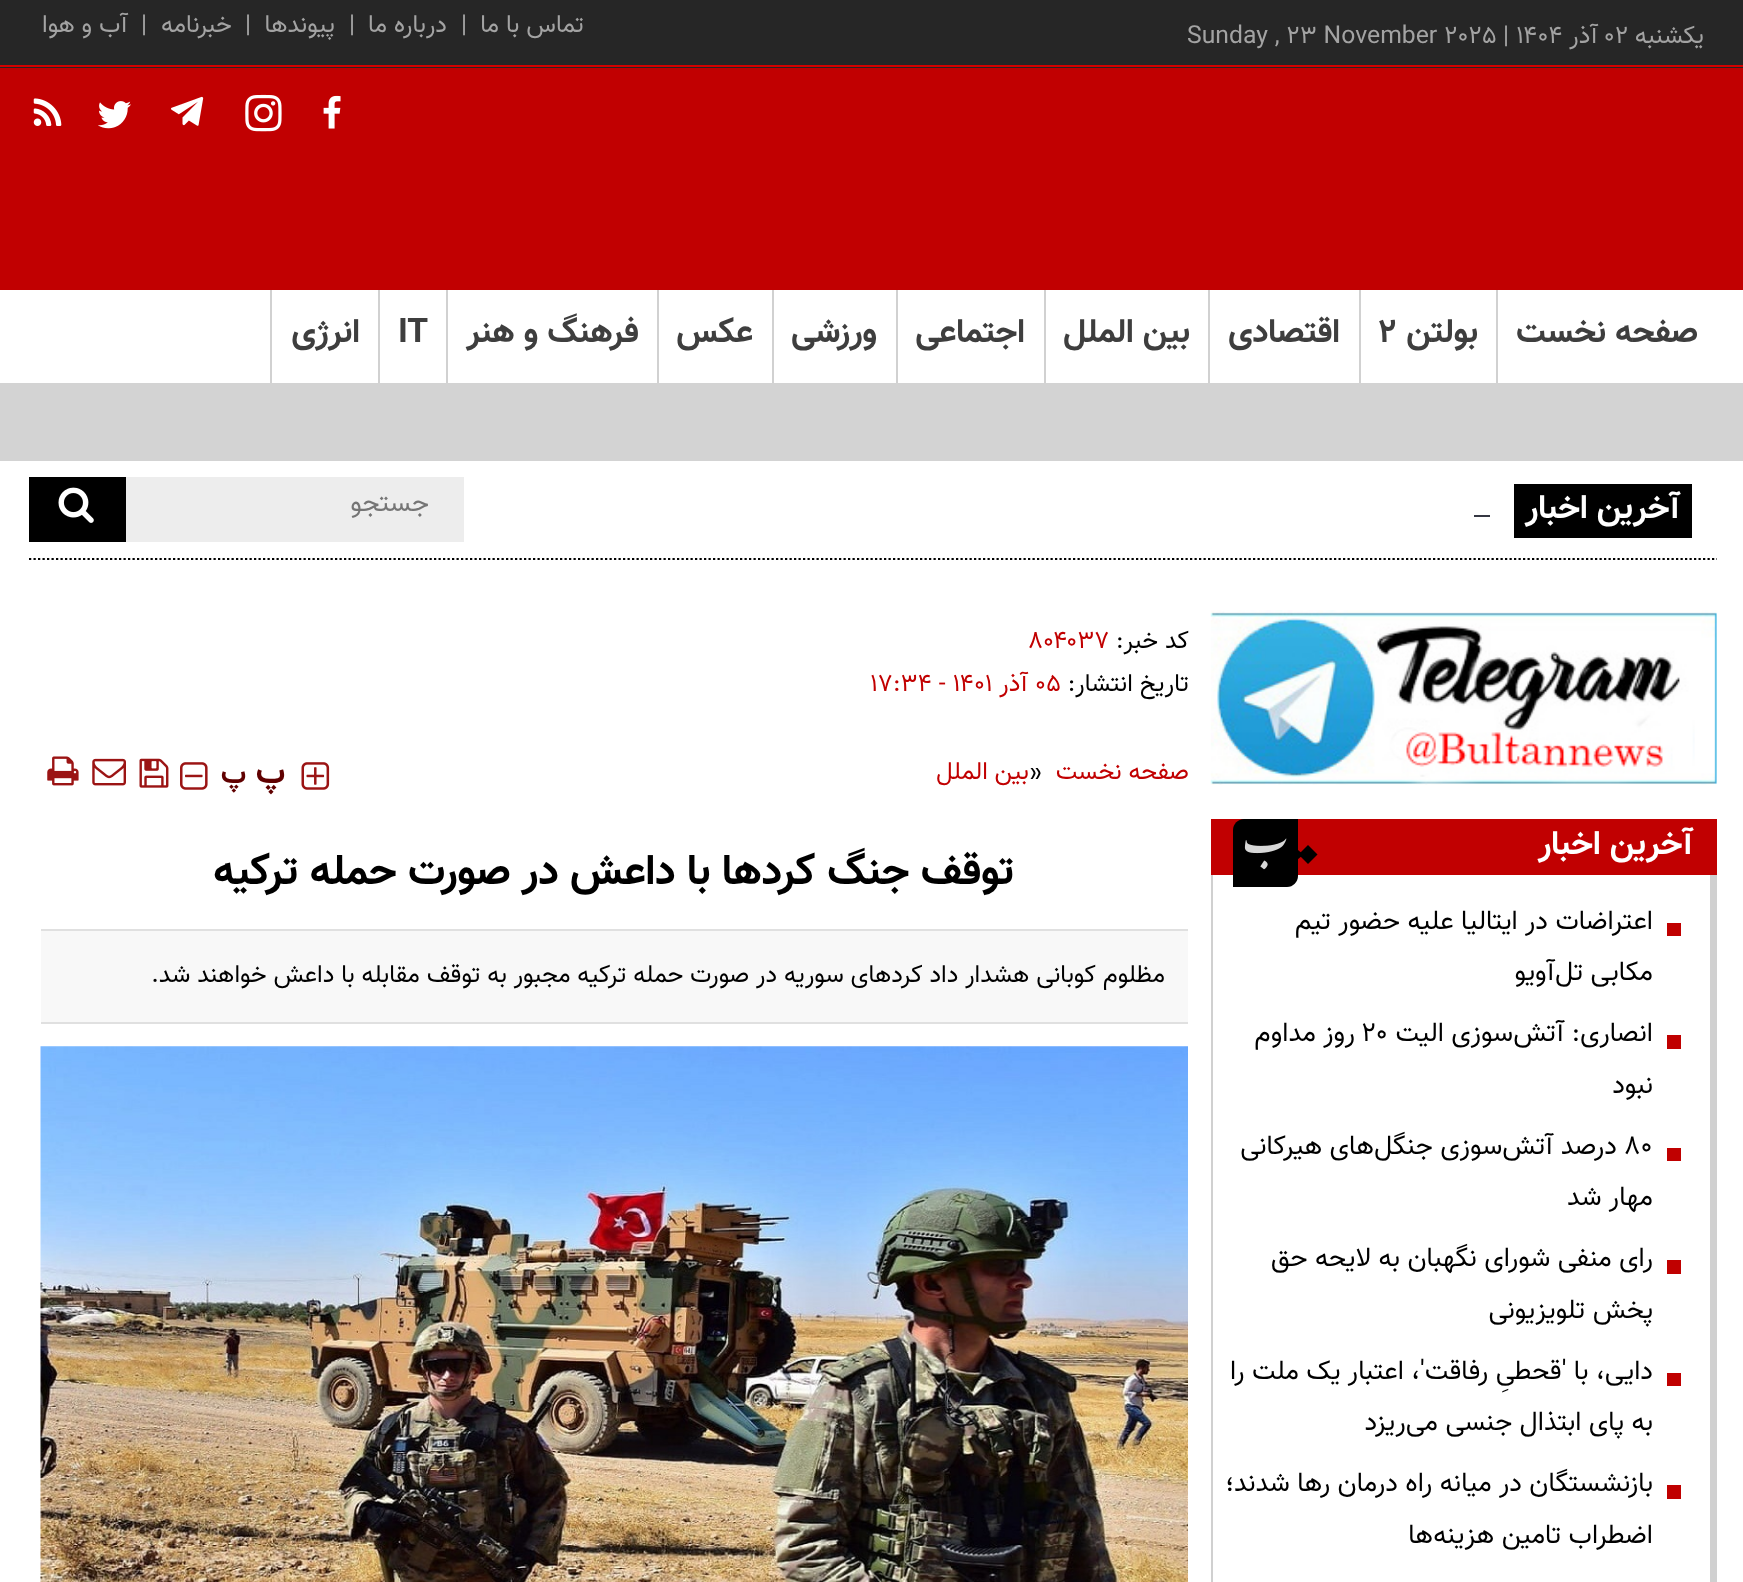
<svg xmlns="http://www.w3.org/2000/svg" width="1743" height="1582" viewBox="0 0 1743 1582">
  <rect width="100%" height="100%" fill="#fff"/>
  <path d="M0 0h1743v68H0z" fill="#262626"/>
  <path d="M0 65h1743v2H0z" fill="#d50100"/>
  <path d="M0 68h1743v222H0z" fill="#c10001"/>
  <image x="323" y="95" width="18" height="34" href="img/1.png"/>
  <image x="245" y="94" width="37" height="38" href="img/2.png"/>
  <image x="171" y="96" width="33" height="30" href="img/3.png"/>
  <image x="98" y="101" width="33" height="28" href="img/4.png"/>
  <image x="33" y="98" width="29" height="28" href="img/5.png"/>
  <path d="M1496 290h2v93H1496z" fill="#d1d1d1"/>
  <path d="M1359 290h2v93H1359z" fill="#d1d1d1"/>
  <path d="M1208 290h2v93H1208z" fill="#d1d1d1"/>
  <path d="M1044 290h2v93H1044z" fill="#d1d1d1"/>
  <path d="M896 290h2v93H896z" fill="#d1d1d1"/>
  <path d="M772 290h2v93H772z" fill="#d1d1d1"/>
  <path d="M657 290h2v93H657z" fill="#d1d1d1"/>
  <path d="M446 290h2v93H446z" fill="#d1d1d1"/>
  <path d="M378 290h2v93H378z" fill="#d1d1d1"/>
  <path d="M270 290h2v93H270z" fill="#d1d1d1"/>
  <path d="M0 383h1743v78H0z" fill="#d3d3d3"/>
  <path d="M29 559H1717" fill="none" stroke="#000" stroke-width="2.2" stroke-dasharray="2.25 2.25"/>
  <path d="M1514 484h178v54H1514z" fill="#000"/>
  <path d="M1474 515h16v2H1474z" fill="#353743"/>
  <path d="M126 477h338v65H126z" fill="#ededed"/>
  <path d="M29 477h97v65H29z" fill="#000"/>
  <image x="58" y="487" width="36" height="36" href="img/6.png"/>
  <image x="1210" y="610" width="507" height="175" href="img/7.png"/>
  <path d="M1211 819h506v56H1211z" fill="#c10001"/>
  <path d="M1244 819H1298V876C1298 882 1293 887 1287 887H1233V830C1233 824 1238 819 1244 819Z" fill="#000"/>
  <path d="M1308 845L1317.5 854.5L1308 864L1298.5 854.5Z" fill="#000"/>
  <path d="M1290 866V843.5L1303.5 854.5Z" fill="#000"/>
  <image x="1244" y="838" width="43" height="32" href="img/8.png"/>
  <path d="M1710 875h7v707H1710z" fill="#d0d0d0"/>
  <path d="M1211 875h2v707H1211z" fill="#d0d0d0"/>
  <path d="M1667 923h14v13H1667z" fill="#c00000"/>
  <path d="M1667 1035h14v14H1667z" fill="#c00000"/>
  <path d="M1667 1148h14v13H1667z" fill="#c00000"/>
  <path d="M1667 1260h14v14H1667z" fill="#c00000"/>
  <path d="M1667 1373h14v13H1667z" fill="#c00000"/>
  <path d="M1667 1485h14v14H1667z" fill="#c00000"/>
  <image x="301" y="762" width="29" height="28" href="img/9.png"/>
  <image x="180" y="762" width="28" height="28" href="img/10.png"/>
  <image x="139" y="758" width="30" height="30" href="img/11.png"/>
  <image x="92" y="758" width="34" height="28" href="img/12.png"/>
  <image x="47" y="756" width="32" height="30" href="img/13.png"/>
  <path d="M41 931h1147v91H41z" fill="#f8f8f8"/>
  <path d="M41 929h1147v2H41z" fill="#e0e0e0"/>
  <path d="M41 1022h1147v2H41z" fill="#e0e0e0"/>
  <image x="40" y="1046" width="1148" height="536" href="img/14.png"/>
  <text x="1704" y="43" font-family="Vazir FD" font-size="24.75" direction="rtl" fill="#a3a3a3">يکشنبه</text>
  <text x="1605" y="43" font-family="Vazir FD" font-size="24.75" fill="#a3a3a3">۰۲</text>
  <text x="1598" y="43" font-family="Vazir FD" font-size="24.75" direction="rtl" fill="#a3a3a3">آذر</text>
  <g font-family="Vazir FD" font-size="24.75" fill="#a3a3a3">
    <text x="1516" y="43">۱۴۰۴</text>
    <text x="1503" y="43">|</text>
    <text x="1187" y="43">Sunday , 23 November 2025</text>
  </g>
  <text x="584" y="32" font-family="Vazir FD" font-size="24.75" direction="rtl" fill="#a3a3a3">تماس با ما</text>
  <text x="461" y="32" font-family="Vazir FD" font-size="24.75" fill="#a3a3a3">|</text>
  <text x="447" y="32" font-family="Vazir FD" font-size="24.75" direction="rtl" fill="#a3a3a3">درباره ما</text>
  <text x="349" y="32" font-family="Vazir FD" font-size="24.75" fill="#a3a3a3">|</text>
  <text x="335" y="32" font-family="Vazir FD" font-size="24.75" direction="rtl" fill="#a3a3a3">پیوندها</text>
  <text x="245" y="32" font-family="Vazir FD" font-size="24.75" fill="#a3a3a3">|</text>
  <text x="232" y="32" font-family="Vazir FD" font-size="24.75" direction="rtl" fill="#a3a3a3">خبرنامه</text>
  <text x="141" y="32" font-family="Vazir FD" font-size="24.75" fill="#a3a3a3">|</text>
  <text x="128" y="32" font-family="Vazir FD" font-size="24.75" direction="rtl" fill="#a3a3a3">آب و هوا</text>
  <g font-family="Vazir FD" font-size="33.75" font-weight="bold" direction="rtl" fill="#3e3e3e">
    <text x="1698" y="342">صفحه نخست</text>
    <text x="1478" y="342">بولتن</text>
  </g>
  <text x="1378" y="342" font-family="Vazir FD" font-size="33.75" font-weight="bold" fill="#3e3e3e">۲</text>
  <g font-family="Vazir FD" font-size="33.75" font-weight="bold" direction="rtl" fill="#3e3e3e">
    <text x="1340" y="342">اقتصادی</text>
    <text x="1190" y="342">بین الملل</text>
    <text x="1025" y="342">اجتماعی</text>
    <text x="877" y="342">ورزشی</text>
    <text x="753" y="342">عکس</text>
    <text x="639" y="342">فرهنگ و هنر</text>
  </g>
  <text x="398" y="342" font-family="Vazir FD" font-size="33.75" font-weight="bold" fill="#3e3e3e">IT</text>
  <text x="360" y="342" font-family="Vazir FD" font-size="33.75" font-weight="bold" direction="rtl" fill="#3e3e3e">انرژی</text>
  <text x="1680" y="518" font-family="Vazir FD" font-size="33.75" font-weight="bold" direction="rtl" fill="#fff">آخرین اخبار</text>
  <text x="429" y="511" font-family="Vazir FD" font-size="27" direction="rtl" fill="#757575">جستجو</text>
  <text x="1693" y="854" font-family="Vazir FD" font-size="33.75" font-weight="bold" direction="rtl" fill="#fff">آخرین اخبار</text>
  <g font-family="Vazir FD" font-size="27" direction="rtl" fill="#000">
    <text x="1653" y="929">اعتراضات در ایتالیا علیه حضور تیم</text>
    <text x="1653" y="980">مکابی تل‌آویو</text>
    <text x="1653" y="1041">انصاری: آتش‌سوزی الیت</text>
  </g>
  <text x="1362" y="1041" font-family="Vazir FD" font-size="27" fill="#000">۲۰</text>
  <g font-family="Vazir FD" font-size="27" direction="rtl" fill="#000">
    <text x="1355" y="1041">روز مداوم</text>
    <text x="1653" y="1093">نبود</text>
  </g>
  <text x="1624" y="1154" font-family="Vazir FD" font-size="27" fill="#000">۸۰</text>
  <g font-family="Vazir FD" font-size="27" direction="rtl" fill="#000">
    <text x="1617" y="1154">درصد آتش‌سوزی جنگل‌های هیرکانی</text>
    <text x="1653" y="1205">مهار شد</text>
    <text x="1653" y="1266">رای منفی شورای نگهبان به لایحه حق</text>
    <text x="1653" y="1318">پخش تلویزیونی</text>
    <text x="1653" y="1379">دایی، با 'قحطیِ رفاقت'، اعتبار یک ملت را</text>
    <text x="1653" y="1430">به پای ابتذال جنسی می‌ریزد</text>
    <text x="1653" y="1491">بازنشستگان در میانه راه درمان رها شدند؛</text>
    <text x="1653" y="1543">اضطراب تامین هزینه‌ها</text>
  </g>
  <text x="1189" y="648" font-family="Vazir FD" font-size="24.75" direction="rtl" fill="#000">کد خبر:</text>
  <text x="1028" y="648" font-family="Vazir FD" font-size="24.75" fill="#c10001">۸۰۴۰۳۷</text>
  <text x="1189" y="691" font-family="Vazir FD" font-size="24.75" direction="rtl" fill="#000">تاریخ انتشار:</text>
  <text x="1035" y="691" font-family="Vazir FD" font-size="24.75" fill="#c10001">۰۵</text>
  <text x="1028" y="691" font-family="Vazir FD" font-size="24.75" direction="rtl" fill="#c10001">آذر</text>
  <text x="870" y="691" font-family="Vazir FD" font-size="24.75" fill="#c10001">۱۷:۳۴ - ۱۴۰۱</text>
  <text x="1189" y="779" font-family="Vazir FD" font-size="24.75" direction="rtl" fill="#c10001">صفحه نخست</text>
  <text x="1029" y="779" font-family="Vazir FD" font-size="24.75" fill="#000">»</text>
  <text x="1029" y="779" font-family="Vazir FD" font-size="24.75" direction="rtl" fill="#c10001">بین الملل</text>
  <text x="285" y="783" font-family="Vazir FD" font-size="33.75" font-weight="bold" direction="rtl" fill="#600000">پ</text>
  <text x="246" y="783" font-family="Vazir FD" font-size="29" font-weight="bold" direction="rtl" fill="#600000">پ</text>
  <text x="1014" y="884" font-family="Vazir FD" font-size="42.75" font-weight="bold" direction="rtl" fill="#000">توقف جنگ کردها با داعش در صورت حمله ترکیه</text>
  <text x="1165" y="982" font-family="Vazir FD" font-size="24.75" direction="rtl" fill="#000">مظلوم کوبانی هشدار داد کردهای سوریه در صورت حمله ترکیه مجبور به توقف مقابله با داعش خواهند شد.</text>
</svg>
